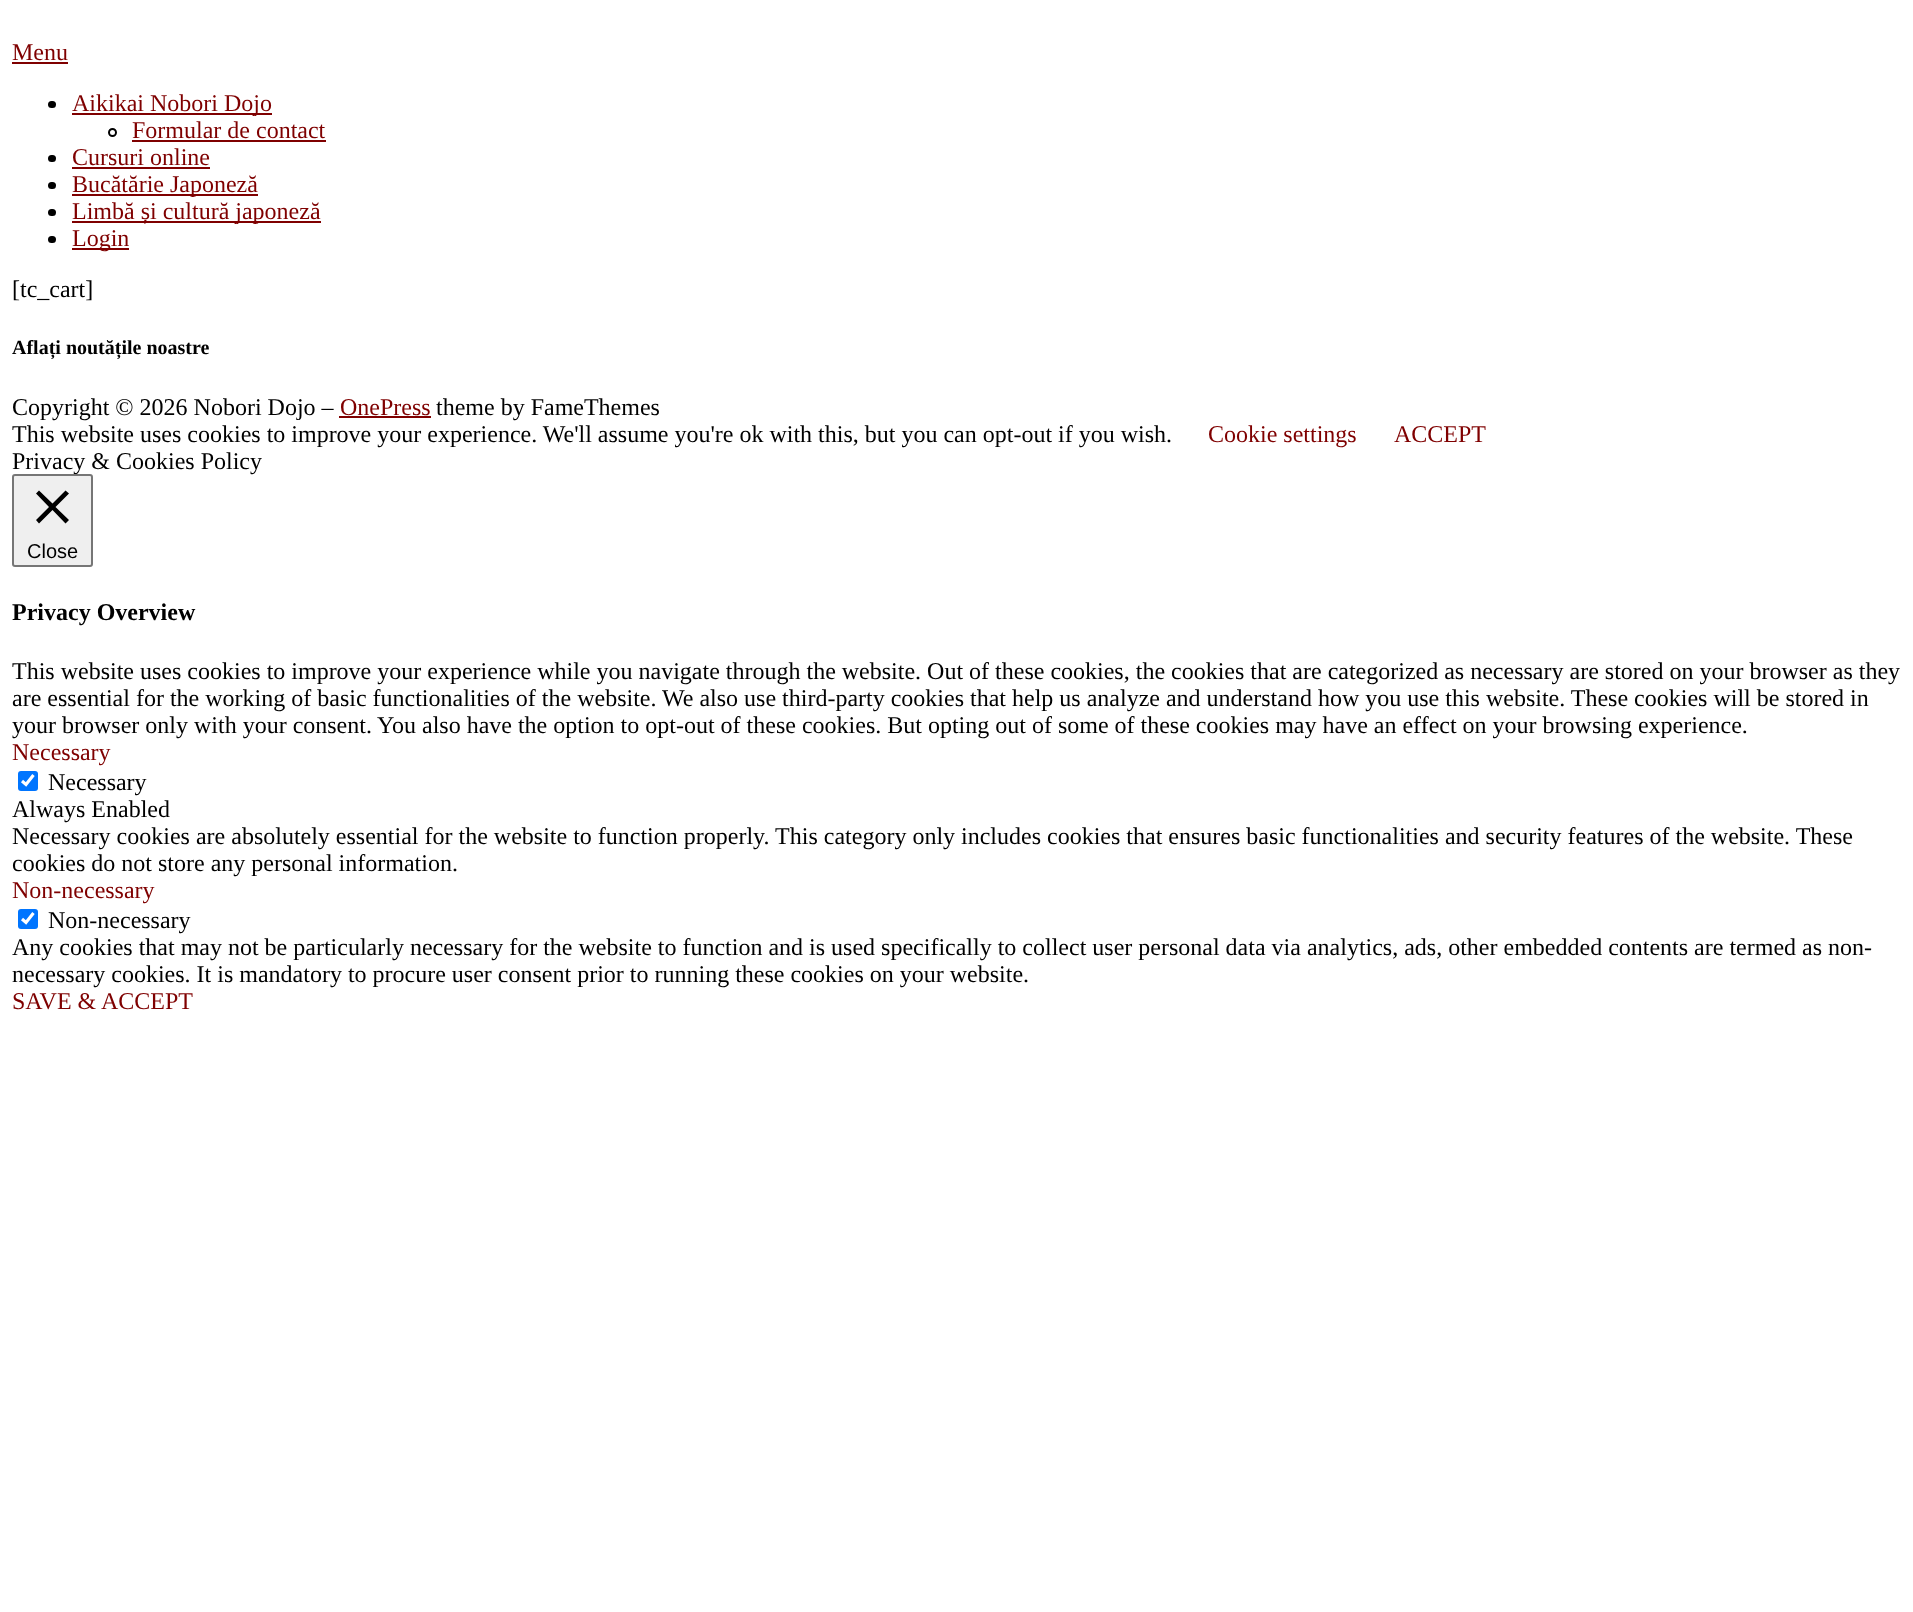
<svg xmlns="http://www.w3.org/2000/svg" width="1913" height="1612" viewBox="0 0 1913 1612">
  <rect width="100%" height="100%" fill="#fff"/>
  <path d="M12 62h56v2H12z" fill="#7f0000"/>
  <rect x="48" y="101" width="8" height="7" rx="3.5" fill="#000"/>
  <path d="M72 113h200v2H72z" fill="#7f0000"/>
  <circle cx="112.5" cy="132.5" r="3.5" fill="none" stroke="#000" stroke-width="2"/>
  <path d="M132 140h194v2H132z" fill="#7f0000"/>
  <rect x="48" y="155" width="8" height="7" rx="3.5" fill="#000"/>
  <path d="M72 167h138v2H72z" fill="#7f0000"/>
  <rect x="48" y="182" width="8" height="7" rx="3.5" fill="#000"/>
  <path d="M72 194h186v2H72z" fill="#7f0000"/>
  <rect x="48" y="209" width="8" height="7" rx="3.5" fill="#000"/>
  <path d="M72 221h249v2H72z" fill="#7f0000"/>
  <rect x="48" y="236" width="8" height="7" rx="3.5" fill="#000"/>
  <path d="M72 248h57v2H72z" fill="#7f0000"/>
  <path d="M339 416h92v2H339z" fill="#7f0000"/>
  <rect x="18" y="771" width="20" height="20" rx="3" fill="#0075ff"/>
  <path d="M22 781L26 784.5L33.5 775" fill="none" stroke="#fff" stroke-width="3.1"/>
  <rect x="18" y="909" width="20" height="20" rx="3" fill="#0075ff"/>
  <path d="M22 919L26 922.5L33.5 913" fill="none" stroke="#fff" stroke-width="3.1"/>
  <g font-family="Liberation Serif" font-size="24" fill="#7f0000">
    <text x="12" y="60">Menu</text>
    <text x="72" y="111">Aikikai Nobori Dojo</text>
    <text x="132" y="138">Formular de contact</text>
    <text x="72" y="165">Cursuri online</text>
    <text x="72" y="192">Bucătărie Japoneză</text>
    <text x="72" y="219">Limbă și cultură japoneză</text>
    <text x="72" y="246">Login</text>
  </g>
  <text x="12" y="297" font-family="Liberation Serif" font-size="24" fill="#000">[tc_cart]</text>
  <text x="12" y="354" font-family="Liberation Serif" font-size="20" font-weight="bold" fill="#000">Aflați noutățile noastre</text>
  <text x="12" y="415" font-family="Liberation Serif" font-size="24" fill="#000">Copyright © 2026 Nobori Dojo –</text>
  <text x="340" y="415" font-family="Liberation Serif" font-size="24" fill="#7f0000">OnePress</text>
  <g font-family="Liberation Serif" font-size="24" fill="#000">
    <text x="436" y="415">theme by FameThemes</text>
    <text x="12" y="442">This website uses cookies to improve your experience. We'll assume you're ok with this, but you can opt-out if you wish.</text>
  </g>
  <g font-family="Liberation Serif" font-size="24" fill="#7f0000">
    <text x="1208" y="442">Cookie settings</text>
    <text x="1394" y="442">ACCEPT</text>
  </g>
  <text x="12" y="469" font-family="Liberation Serif" font-size="24" fill="#000">Privacy &amp; Cookies Policy</text>
  <rect x="13" y="475" width="79" height="91" rx="2" fill="#efefef" stroke="#767676" stroke-width="2"/>
  <path d="M69 493.5L65.5 490.5L52.5 503.5L39 490.5L36 493.5L49 507L36 520L39 523.5L52.5 510L65.5 523.5L69 520L55.5 507Z" fill="#000"/>
  <text x="27" y="558" font-family="Liberation Sans" font-size="20" fill="#000">Close</text>
  <text x="12" y="620" font-family="Liberation Serif" font-size="24" font-weight="bold" fill="#000">Privacy Overview</text>
  <g font-family="Liberation Serif" font-size="24" fill="#000">
    <text x="12" y="679">This website uses cookies to improve your experience while you navigate through the website. Out of these cookies, the cookies that are categorized as necessary are stored on your browser as they</text>
    <text x="12" y="706">are essential for the working of basic functionalities of the website. We also use third-party cookies that help us analyze and understand how you use this website. These cookies will be stored in</text>
    <text x="12" y="733">your browser only with your consent. You also have the option to opt-out of these cookies. But opting out of some of these cookies may have an effect on your browsing experience.</text>
  </g>
  <text x="12" y="760" font-family="Liberation Serif" font-size="24" fill="#7f0000">Necessary</text>
  <g font-family="Liberation Serif" font-size="24" fill="#000">
    <text x="48" y="790">Necessary</text>
    <text x="12" y="817">Always Enabled</text>
    <text x="12" y="844">Necessary cookies are absolutely essential for the website to function properly. This category only includes cookies that ensures basic functionalities and security features of the website. These</text>
    <text x="12" y="871">cookies do not store any personal information.</text>
  </g>
  <text x="12" y="898" font-family="Liberation Serif" font-size="24" fill="#7f0000">Non-necessary</text>
  <g font-family="Liberation Serif" font-size="24" fill="#000">
    <text x="48" y="928">Non-necessary</text>
    <text x="12" y="955">Any cookies that may not be particularly necessary for the website to function and is used specifically to collect user personal data via analytics, ads, other embedded contents are termed as non-</text>
    <text x="12" y="982">necessary cookies. It is mandatory to procure user consent prior to running these cookies on your website.</text>
  </g>
  <text x="12" y="1009" font-family="Liberation Serif" font-size="24" fill="#7f0000">SAVE &amp; ACCEPT</text>
</svg>
